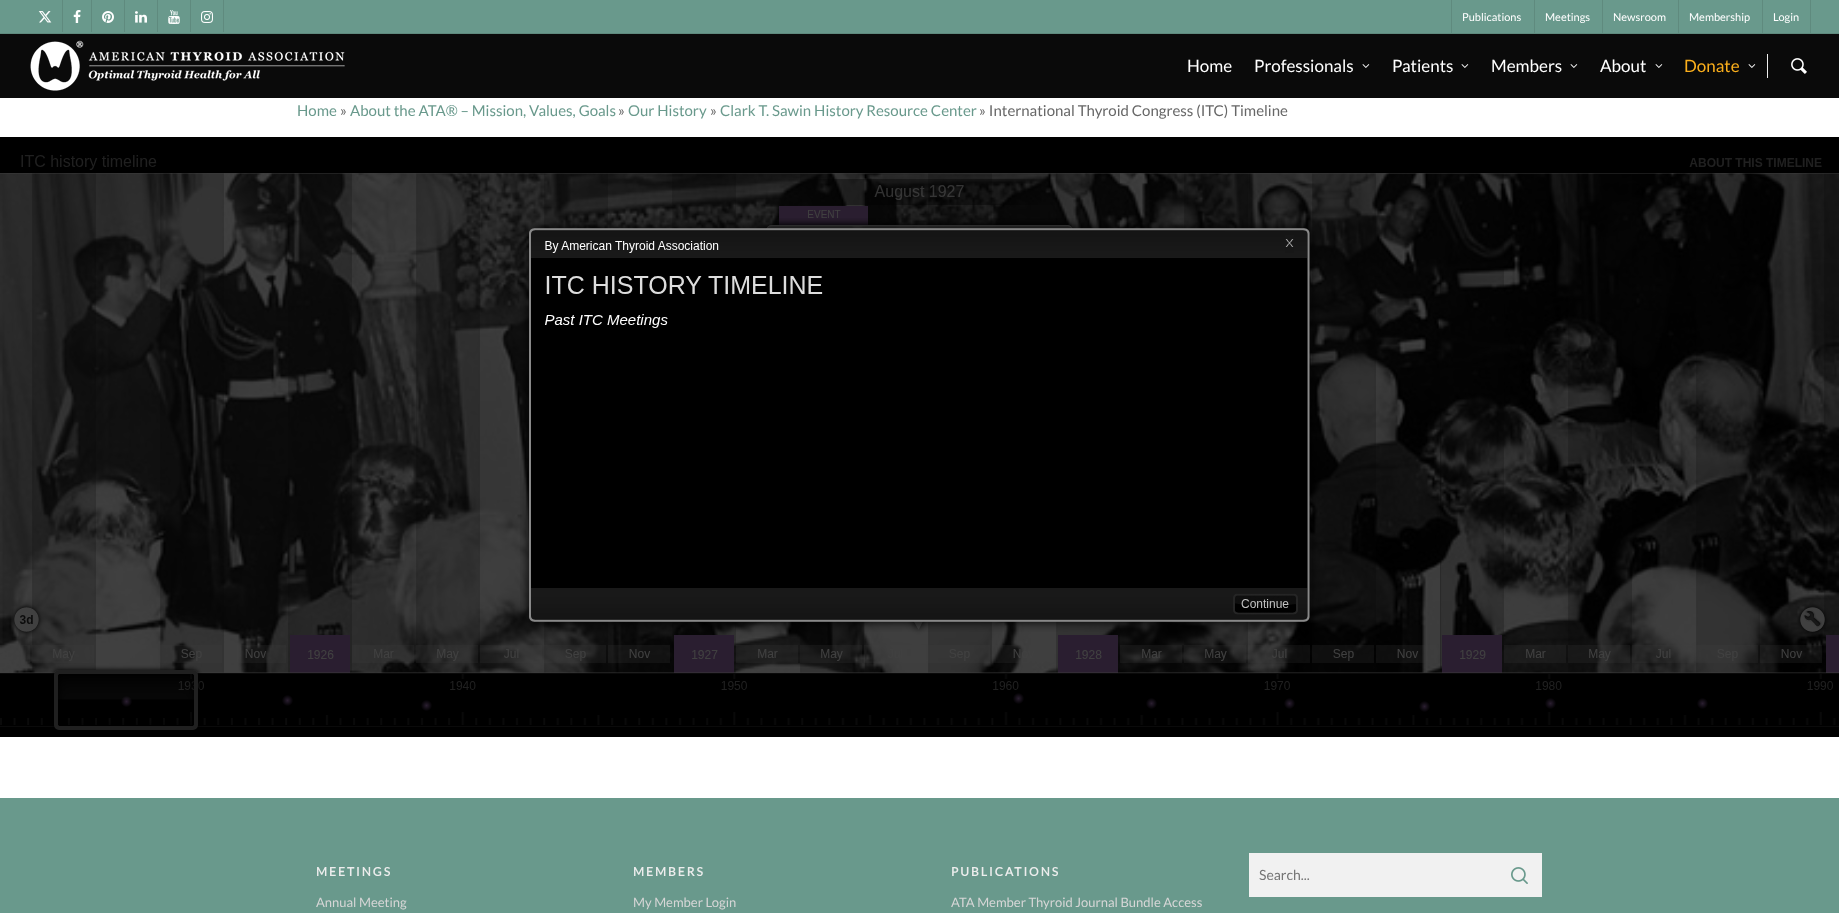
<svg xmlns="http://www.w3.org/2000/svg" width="1839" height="913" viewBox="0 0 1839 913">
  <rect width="100%" height="100%" fill="#fff"/>
  <path d="M0 0h1839v33H0z" fill="#69998c"/>
  <path d="M0 33h1839v1H0z" fill="#5f8a7e"/>
  <image x="38" y="11" width="14" height="12" href="img/1.png"/>
  <path d="M62 0h1v32H62z" fill="#5f8a7e"/>
  <image x="73" y="10" width="8" height="13" href="img/2.png"/>
  <path d="M91 0h1v32H91z" fill="#5f8a7e"/>
  <image x="102" y="11" width="12" height="12" href="img/3.png"/>
  <path d="M124 0h1v32H124z" fill="#5f8a7e"/>
  <image x="135" y="11" width="12" height="12" href="img/4.png"/>
  <path d="M157 0h1v32H157z" fill="#5f8a7e"/>
  <image x="168" y="10" width="12" height="14" href="img/5.png"/>
  <path d="M223 0h1v32H223z" fill="#5f8a7e"/>
  <path d="M190 0h1v32H190z" fill="#5f8a7e"/>
  <image x="201" y="11" width="12" height="12" href="img/6.png"/>
  <path d="M1451 0h1v33H1451z" fill="#5f8a7e"/>
  <path d="M1534 0h1v33H1534z" fill="#5f8a7e"/>
  <path d="M1602 0h1v33H1602z" fill="#5f8a7e"/>
  <path d="M1678 0h1v33H1678z" fill="#5f8a7e"/>
  <path d="M1810 0h1v33H1810z" fill="#5f8a7e"/>
  <path d="M1762 0h1v33H1762z" fill="#5f8a7e"/>
  <path d="M0 34h1839v64H0z" fill="#0a0a0a"/>
  <image x="30" y="40" width="315" height="51" href="img/7.png"/>
  <image x="1362" y="64" width="8" height="4" href="img/8.png"/>
  <image x="1461" y="64" width="8" height="4" href="img/8.png"/>
  <image x="1570" y="64" width="8" height="4" href="img/8.png"/>
  <image x="1655" y="64" width="8" height="4" href="img/8.png"/>
  <image x="1748" y="64" width="8" height="4" href="img/8.png"/>
  <path d="M1767 54h1v24H1767z" fill="#eee"/>
  <image x="1791" y="58" width="16" height="16" href="img/9.png"/>
  <image x="0" y="137" width="1839" height="600" href="img/10.png"/>
  <path d="M0 798h1839v115H0z" fill="#69998c"/>
  <path d="M1249 853h293v44H1249z" fill="#f1f1f1"/>
  <image x="1511" y="867" width="17" height="17" href="img/11.png"/>
  <g font-family="Lato" font-size="11" fill="#fff">
    <text x="1462" y="21">Publications</text>
    <text x="1545" y="21">Meetings</text>
    <text x="1613" y="21">Newsroom</text>
    <text x="1689" y="21">Membership</text>
    <text x="1773" y="21">Login</text>
  </g>
  <g font-family="Lato" font-size="17" fill="#fff">
    <text x="1187" y="72">Home</text>
    <text x="1254" y="72">Professionals</text>
    <text x="1392" y="72">Patients</text>
    <text x="1491" y="72">Members</text>
    <text x="1600" y="72">About</text>
  </g>
  <text x="1684" y="72" font-family="Lato" font-size="17" fill="#fbaf1c">Donate</text>
  <text x="297" y="116" font-family="Lato" font-size="15" fill="#69998c">Home</text>
  <text x="340" y="116" font-family="Lato" font-size="15" fill="#676767">»</text>
  <text x="350" y="116" font-family="Lato" font-size="15" fill="#69998c">About the ATA® – Mission, Values, Goals</text>
  <text x="618" y="116" font-family="Lato" font-size="15" fill="#676767">»</text>
  <text x="628" y="116" font-family="Lato" font-size="15" fill="#69998c">Our History</text>
  <text x="710" y="116" font-family="Lato" font-size="15" fill="#676767">»</text>
  <text x="720" y="116" font-family="Lato" font-size="15" fill="#69998c">Clark T. Sawin History Resource Center</text>
  <text x="979" y="116" font-family="Lato" font-size="15" fill="#676767">» International Thyroid Congress (ITC) Timeline</text>
  <text x="316" y="876" font-family="Lato" font-size="12" font-weight="bold" letter-spacing="2" fill="#ededed">MEETINGS</text>
  <text x="316" y="907" font-family="Lato" font-size="13" fill="#d6d6d6">Annual Meeting</text>
  <text x="633" y="876" font-family="Lato" font-size="12" font-weight="bold" letter-spacing="2" fill="#ededed">MEMBERS</text>
  <text x="633" y="907" font-family="Lato" font-size="13" fill="#d6d6d6">My Member Login</text>
  <text x="951" y="876" font-family="Lato" font-size="12" font-weight="bold" letter-spacing="2" fill="#ededed">PUBLICATIONS</text>
  <text x="951" y="907" font-family="Lato" font-size="13" fill="#d6d6d6">ATA Member Thyroid Journal Bundle Access</text>
  <text x="1259" y="880" font-family="Lato" font-size="14" fill="#757575">Search...</text>
</svg>
